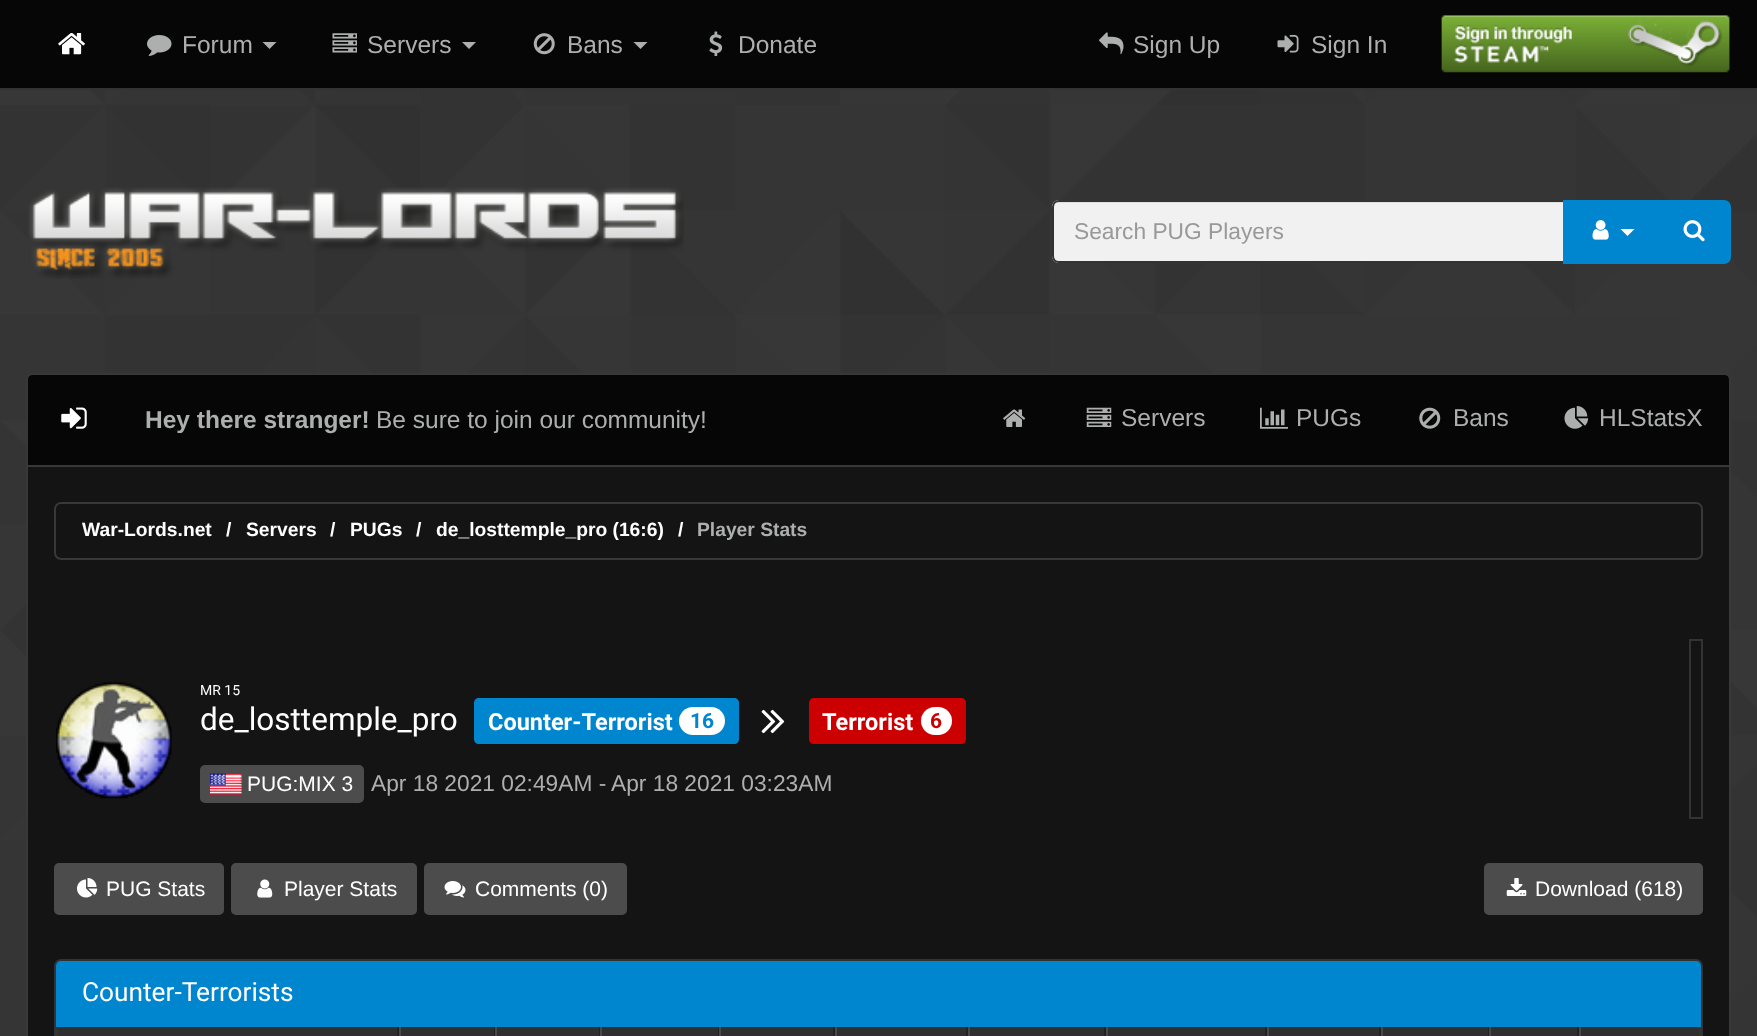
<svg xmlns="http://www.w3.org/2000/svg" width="1757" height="1036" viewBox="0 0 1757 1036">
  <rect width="100%" height="100%" fill="#fff"/>
  <image x="0" y="90" width="1757" height="946" href="img/1.png"/>
  <path d="M0 0h1757v88H0z" fill="#060606"/>
  <path d="M0 88h1757v2H0z" fill="#333"/>
  <image x="58" y="33" width="27" height="22" href="img/2.png"/>
  <image x="147" y="35" width="25" height="21" href="img/3.png"/>
  <path d="M262.5 42H276.5L269.5 49Z" fill="#adafae"/>
  <image x="332" y="33" width="25" height="20" href="img/4.png"/>
  <path d="M462 42H476L469 49Z" fill="#adafae"/>
  <image x="533" y="33" width="22" height="22" href="img/5.png"/>
  <path d="M633.5 42H647.5L640.5 49Z" fill="#adafae"/>
  <image x="709" y="31" width="14" height="25" href="img/6.png"/>
  <image x="1099" y="32" width="25" height="23" href="img/7.png"/>
  <image x="1277" y="35" width="22" height="18" href="img/8.png"/>
  <image x="1441" y="15" width="289" height="58" href="img/9.png"/>
  <image x="28" y="187" width="656" height="92" href="img/10.png"/>
  <path d="M1059 200H1565V263H1059C1055 263 1052 260 1052 256V207C1052 203 1055 200 1059 200Z" fill="#f1f1f1"/>
  <path d="M1059 203H1563V201H1059C1056 201 1054 203 1054 206V208C1054 205 1056 203 1059 203Z" fill="#dfdfdf"/>
  <path d="M1059 201H1564V262H1059C1055.5 262 1053 259.5 1053 256V207C1053 203.5 1055.5 201 1059 201Z" fill="none" stroke="#333" stroke-width="2"/>
  <path d="M1563 200h93v64H1563z" fill="#0085cf"/>
  <image x="1592" y="220" width="17" height="20" href="img/11.png"/>
  <path d="M1620.5 229H1634.5L1627.5 236Z" fill="#fff"/>
  <path d="M1657 201H1724C1727.5 201 1730 203.5 1730 207V257C1730 260.5 1727.5 263 1724 263H1657Z" fill="#0085cf" stroke="#0085cf" stroke-width="2"/>
  <image x="1683" y="220" width="22" height="22" href="img/12.png"/>
  <path d="M33 374H1724C1727.5 374 1730 376.5 1730 380V466H27V380C27 376.5 29.5 374 33 374Z" fill="#060606" stroke="#373838" stroke-width="2"/>
  <image x="61" y="407" width="26" height="22" href="img/13.png"/>
  <image x="1003" y="409" width="23" height="18" href="img/14.png"/>
  <image x="1086" y="407" width="26" height="20" href="img/15.png"/>
  <image x="1260" y="407" width="28" height="22" href="img/16.png"/>
  <image x="1419" y="407" width="22" height="22" href="img/17.png"/>
  <image x="1564" y="406" width="25" height="23" href="img/18.png"/>
  <path d="M28 467h1701v569H28z" fill="#141414"/>
  <path d="M26 467H1731V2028C1731 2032 1728 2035 1724 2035H33C29 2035 26 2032 26 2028ZM28 467H1729V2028C1729 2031 1727 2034 1724 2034H33C30 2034 28 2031 28 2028Z" fill="#373838" fill-rule="evenodd"/>
  <rect x="55" y="503" width="1647" height="56" rx="6" fill="none" stroke="#373838" stroke-width="2"/>
  <image x="56" y="682" width="116" height="117" href="img/19.png"/>
  <path d="M479 698H679V744H479C476 744 474 742 474 739V703C474 700 476 698 479 698Z" fill="#0085cf"/>
  <path d="M679 698H734C737 698 739 700 739 703V739C739 742 737 744 734 744H679Z" fill="#0085cf"/>
  <rect x="679" y="707" width="46" height="28" rx="14" fill="#fff"/>
  <image x="761" y="709" width="24" height="25" href="img/20.png"/>
  <path d="M814 698H921V744H814C811 744 809 742 809 739V703C809 700 811 698 814 698Z" fill="#c00"/>
  <path d="M921 698H961C964 698 966 700 966 703V739C966 742 964 744 961 744H921Z" fill="#c00"/>
  <rect x="921" y="707" width="31" height="28" rx="14" fill="#fff"/>
  <rect x="201" y="766" width="162" height="36" rx="4" fill="#4d4c4c" stroke="#4d4c4c" stroke-width="2"/>
  <image x="210" y="773" width="32" height="22" href="img/21.png"/>
  <path d="M1690 640h12v178H1690z" fill="none" stroke="#333" stroke-width="2"/>
  <rect x="55" y="864" width="168" height="50" rx="4" fill="#4d4c4c" stroke="#4d4c4c" stroke-width="2"/>
  <image x="77" y="878" width="21" height="20" href="img/22.png"/>
  <rect x="232" y="864" width="184" height="50" rx="4" fill="#4d4c4c" stroke="#4d4c4c" stroke-width="2"/>
  <image x="257" y="879" width="16" height="19" href="img/23.png"/>
  <rect x="425" y="864" width="201" height="50" rx="4" fill="#4d4c4c" stroke="#4d4c4c" stroke-width="2"/>
  <image x="444" y="881" width="22" height="17" href="img/24.png"/>
  <rect x="1485" y="864" width="217" height="50" rx="4" fill="#4d4c4c" stroke="#4d4c4c" stroke-width="2"/>
  <image x="1506" y="878" width="21" height="18" href="img/25.png"/>
  <rect x="55" y="960" width="1647" height="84" rx="6" fill="none" stroke="#333" stroke-width="2"/>
  <path d="M61 961H1696C1699 961 1701 963 1701 966V1027H56V966C56 963 58 961 61 961Z" fill="#0085cf"/>
  <path d="M56 1027H1701V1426C1701 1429 1699 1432 1696 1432H61C58 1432 56 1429 56 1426ZM58 1027H1699V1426C1699 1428 1698 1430 1696 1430H61C59 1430 58 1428 58 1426Z" fill="#333" fill-rule="evenodd"/>
  <path d="M58 1027h339v9H58z" fill="#2f2f2f"/>
  <path d="M397 1027h2v9H397z" fill="#222"/>
  <path d="M401 1027h93v9H401z" fill="#2f2f2f"/>
  <path d="M494 1027h1v9H494z" fill="#222"/>
  <path d="M399 1027h2v9H399z" fill="#494949"/>
  <path d="M497 1027h102v9H497z" fill="#2f2f2f"/>
  <path d="M599 1027h1v9H599z" fill="#222"/>
  <path d="M495 1027h2v9H495z" fill="#494949"/>
  <path d="M602 1027h116v9H602z" fill="#2f2f2f"/>
  <path d="M718 1027h1v9H718z" fill="#222"/>
  <path d="M600 1027h2v9H600z" fill="#494949"/>
  <path d="M721 1027h112v9H721z" fill="#2f2f2f"/>
  <path d="M833 1027h2v9H833z" fill="#222"/>
  <path d="M719 1027h2v9H719z" fill="#494949"/>
  <path d="M837 1027h129v9H837z" fill="#2f2f2f"/>
  <path d="M966 1027h2v9H966z" fill="#222"/>
  <path d="M835 1027h2v9H835z" fill="#494949"/>
  <path d="M970 1027h134v9H970z" fill="#2f2f2f"/>
  <path d="M1104 1027h2v9H1104z" fill="#222"/>
  <path d="M968 1027h2v9H968z" fill="#494949"/>
  <path d="M1108 1027h157v9H1108z" fill="#2f2f2f"/>
  <path d="M1265 1027h2v9H1265z" fill="#222"/>
  <path d="M1106 1027h2v9H1106z" fill="#494949"/>
  <path d="M1269 1027h110v9H1269z" fill="#2f2f2f"/>
  <path d="M1379 1027h2v9H1379z" fill="#222"/>
  <path d="M1267 1027h2v9H1267z" fill="#494949"/>
  <path d="M1383 1027h105v9H1383z" fill="#2f2f2f"/>
  <path d="M1488 1027h1v9H1488z" fill="#222"/>
  <path d="M1381 1027h2v9H1381z" fill="#494949"/>
  <path d="M1491 1027h86v9H1491z" fill="#2f2f2f"/>
  <path d="M1577 1027h2v9H1577z" fill="#222"/>
  <path d="M1489 1027h2v9H1489z" fill="#494949"/>
  <path d="M1581 1027h118v9H1581z" fill="#2f2f2f"/>
  <path d="M1579 1027h2v9H1579z" fill="#494949"/>
  <g font-family="Liberation Sans" font-size="24.5" fill="#adafae">
    <text x="182" y="53">Forum</text>
    <text x="367" y="53">Servers</text>
    <text x="567" y="53">Bans</text>
    <text x="738" y="53">Donate</text>
    <text x="1133" y="53">Sign Up</text>
    <text x="1311" y="53">Sign In</text>
  </g>
  <text x="1074" y="239" font-family="Liberation Sans" font-size="22.75" fill="#999">Search PUG Players</text>
  <text x="145" y="428" font-family="Liberation Sans" font-size="24.5" font-weight="bold" fill="#adafae">Hey there stranger!</text>
  <g font-family="Liberation Sans" font-size="24.5" fill="#adafae">
    <text x="376" y="428">Be sure to join our community!</text>
    <text x="1121" y="426">Servers</text>
    <text x="1296" y="426">PUGs</text>
    <text x="1453" y="426">Bans</text>
    <text x="1599" y="426">HLStatsX</text>
  </g>
  <g font-family="Liberation Sans" font-size="19.25" font-weight="bold" fill="#fff">
    <text x="82" y="536">War-Lords.net</text>
    <text x="226" y="536">/</text>
    <text x="246" y="536">Servers</text>
    <text x="330" y="536">/</text>
    <text x="350" y="536">PUGs</text>
    <text x="416" y="536">/</text>
    <text x="436" y="536">de_losttemple_pro (16:6)</text>
    <text x="678" y="536">/</text>
  </g>
  <text x="697" y="536" font-family="Liberation Sans" font-size="19.25" font-weight="bold" fill="#adafae">Player Stats</text>
  <text x="200" y="695" font-family="Roboto" font-size="14" fill="#fff">MR 15</text>
  <text x="200" y="730" font-family="Roboto" font-size="31.5" fill="#fff">de_losttemple_pro</text>
  <text x="488" y="730" font-family="Roboto" font-size="23.5" font-weight="bold" fill="#fff">Counter-Terrorist</text>
  <text x="690" y="728" font-family="Roboto" font-size="21" font-weight="bold" fill="#0085cf">16</text>
  <text x="822" y="730" font-family="Roboto" font-size="23.5" font-weight="bold" fill="#fff">Terrorist</text>
  <text x="930" y="728" font-family="Roboto" font-size="21" font-weight="bold" fill="#c00">6</text>
  <text x="247" y="791" font-family="Liberation Sans" font-size="21" fill="#fff">PUG:MIX 3</text>
  <g font-family="Liberation Sans" font-size="22.75" fill="#adafae">
    <text x="371" y="791">Apr 18 2021 02:49AM -</text>
    <text x="611" y="791">Apr 18 2021 03:23AM</text>
  </g>
  <g font-family="Liberation Sans" font-size="21" fill="#fff">
    <text x="106" y="896">PUG Stats</text>
    <text x="284" y="896">Player Stats</text>
    <text x="475" y="896">Comments (0)</text>
    <text x="1535" y="896">Download (618)</text>
  </g>
  <text x="82" y="1001" font-family="Roboto" font-size="26.25" fill="#fff">Counter-Terrorists</text>
</svg>
